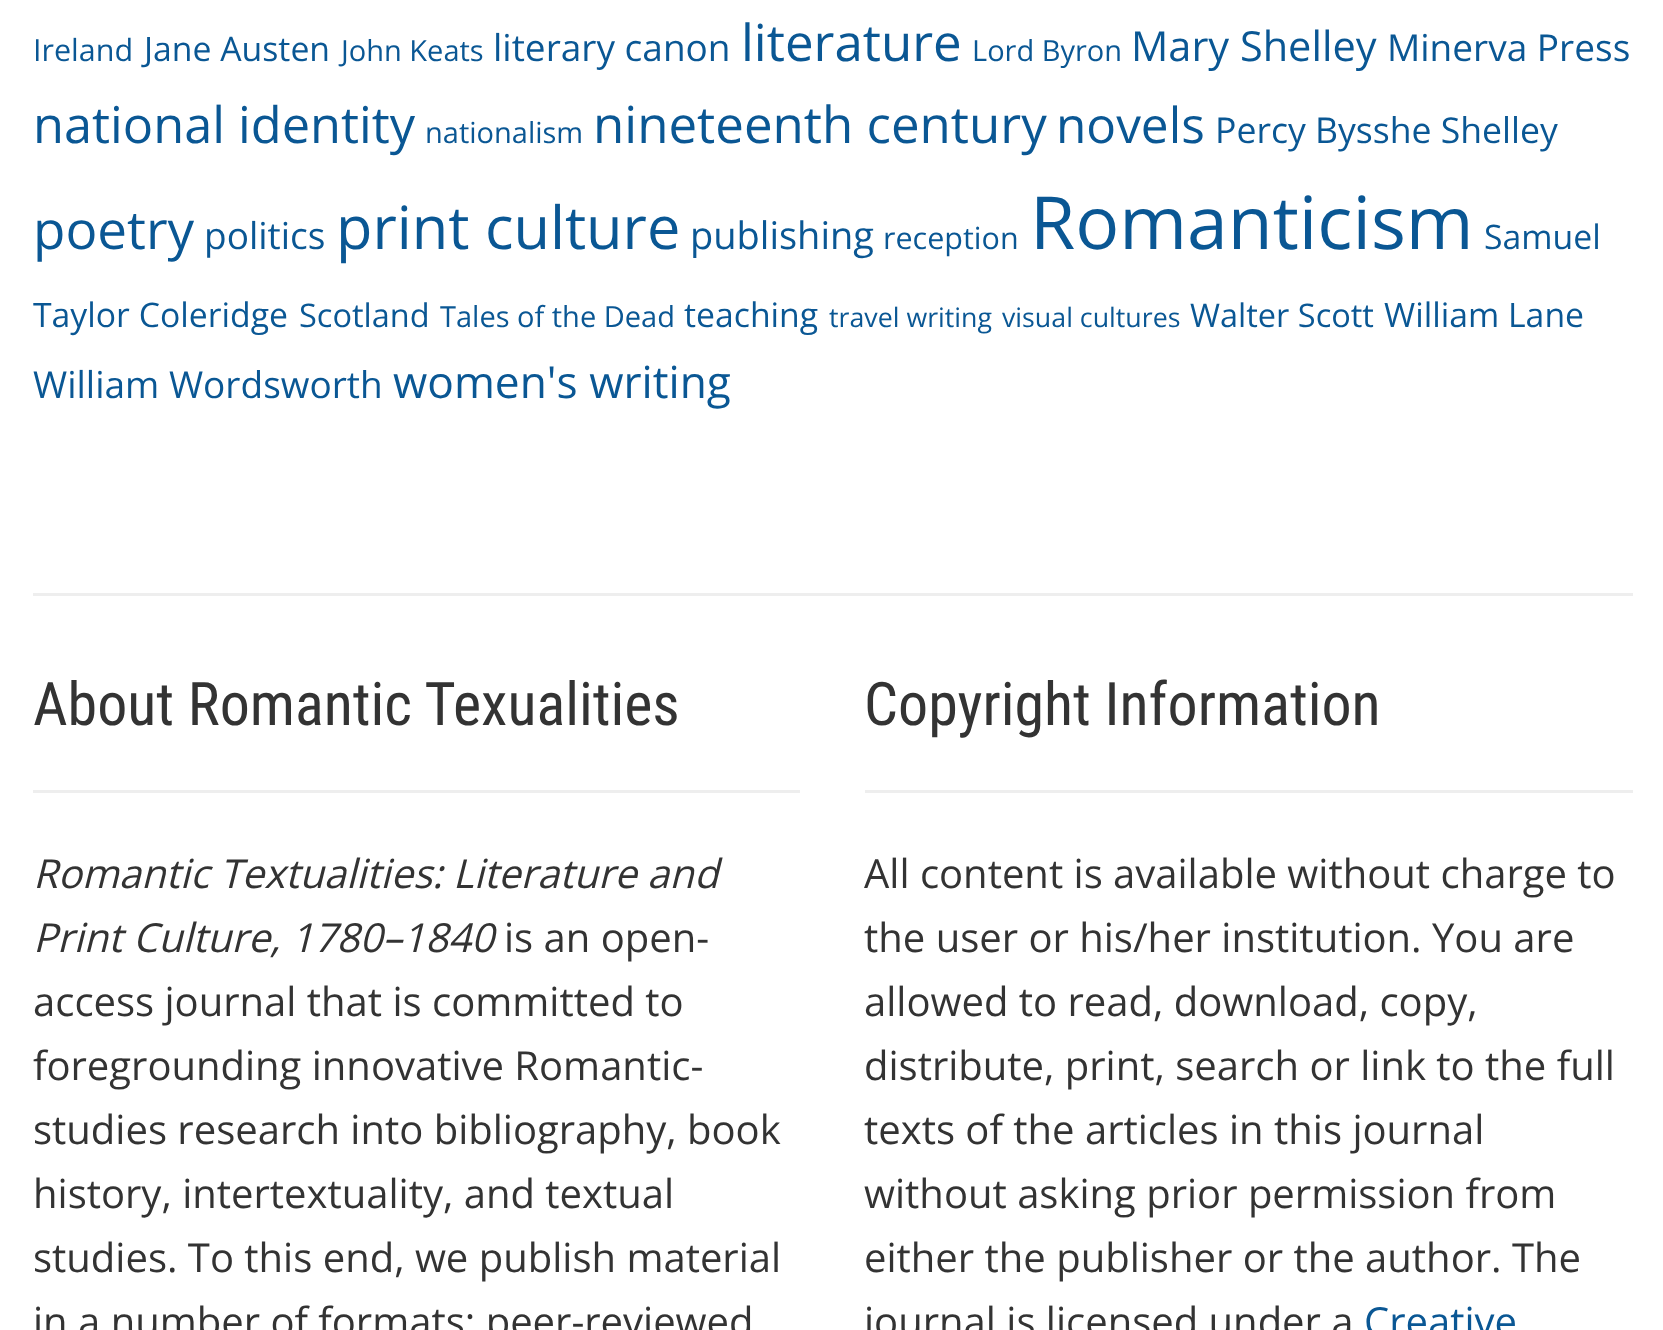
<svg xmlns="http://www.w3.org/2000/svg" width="1663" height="1330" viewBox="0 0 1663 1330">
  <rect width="100%" height="100%" fill="#fff"/>
  <path d="M33 593h1600v3H33z" fill="#eee"/>
  <path d="M33 790h767v3H33z" fill="#eee"/>
  <path d="M865 790h768v3H865z" fill="#eee"/>
  <text x="33" y="61" font-family="Open Sans" font-size="30.5" fill="#0a5794">Ireland</text>
  <text x="144" y="61" font-family="Open Sans" font-size="33.75" fill="#0a5794">Jane Austen</text>
  <text x="341" y="61" font-family="Open Sans" font-size="29" fill="#0a5794">John Keats</text>
  <text x="493" y="61" font-family="Open Sans" font-size="37" fill="#0a5794">literary canon</text>
  <text x="741" y="61" font-family="Open Sans" font-size="51" fill="#0a5794">literature</text>
  <text x="972" y="61" font-family="Open Sans" font-size="29" fill="#0a5794">Lord Byron</text>
  <text x="1131" y="61" font-family="Open Sans" font-size="41.5" fill="#0a5794">Mary Shelley</text>
  <text x="1387" y="61" font-family="Open Sans" font-size="37" fill="#0a5794">Minerva Press</text>
  <text x="33" y="143" font-family="Open Sans" font-size="50.5" fill="#0a5794">national identity</text>
  <text x="425" y="143" font-family="Open Sans" font-size="29" fill="#0a5794">nationalism</text>
  <text x="593" y="143" font-family="Open Sans" font-size="51" fill="#0a5794">nineteenth century</text>
  <text x="1056" y="143" font-family="Open Sans" font-size="49.5" fill="#0a5794">novels</text>
  <text x="1215" y="143" font-family="Open Sans" font-size="35.6" fill="#0a5794">Percy Bysshe Shelley</text>
  <text x="33" y="249" font-family="Open Sans" font-size="53" fill="#0a5794">poetry</text>
  <text x="204" y="249" font-family="Open Sans" font-size="37" fill="#0a5794">politics</text>
  <text x="336" y="249" font-family="Open Sans" font-size="59.5" fill="#0a5794">print culture</text>
  <text x="690" y="249" font-family="Open Sans" font-size="38" fill="#0a5794">publishing</text>
  <text x="883" y="249" font-family="Open Sans" font-size="30.5" fill="#0a5794">reception</text>
  <text x="1030" y="249" font-family="Open Sans" font-size="73.25" fill="#0a5794">Romanticism</text>
  <g font-family="Open Sans" font-size="33.75" fill="#0a5794">
    <text x="1484" y="249">Samuel</text>
    <text x="33" y="327">Taylor Coleridge</text>
  </g>
  <text x="299" y="327" font-family="Open Sans" font-size="32.5" fill="#0a5794">Scotland</text>
  <text x="440" y="327" font-family="Open Sans" font-size="29" fill="#0a5794">Tales of the Dead</text>
  <text x="684" y="327" font-family="Open Sans" font-size="33.75" fill="#0a5794">teaching</text>
  <g font-family="Open Sans" font-size="26.75" fill="#0a5794">
    <text x="829" y="327">travel writing</text>
    <text x="1002" y="327">visual cultures</text>
  </g>
  <text x="1190" y="327" font-family="Open Sans" font-size="32.5" fill="#0a5794">Walter Scott</text>
  <text x="1384" y="327" font-family="Open Sans" font-size="33.75" fill="#0a5794">William Lane</text>
  <text x="33" y="398" font-family="Open Sans" font-size="37" fill="#0a5794">William Wordsworth</text>
  <text x="393" y="398" font-family="Open Sans" font-size="44.25" fill="#0a5794">women's writing</text>
  <text x="33" y="725" font-family="Roboto Condensed" font-size="60" fill="#333">About Romantic Texualities</text>
  <g font-family="Open Sans" font-size="40" font-style="italic" fill="#333">
    <text x="33" y="888">Romantic Textualities: Literature and</text>
    <text x="33" y="952">Print Culture, 1780–1840</text>
  </g>
  <g font-family="Open Sans" font-size="40" fill="#333">
    <text x="504" y="952">is an open-</text>
    <text x="33" y="1016">access journal that is committed to</text>
    <text x="33" y="1080">foregrounding innovative Romantic-</text>
    <text x="33" y="1144">studies research into bibliography, book</text>
    <text x="33" y="1208">history, intertextuality, and textual</text>
    <text x="33" y="1272">studies. To this end, we publish material</text>
    <text x="33" y="1336">in a number of formats: peer-reviewed</text>
  </g>
  <text x="864" y="725" font-family="Roboto Condensed" font-size="60" fill="#333">Copyright Information</text>
  <g font-family="Open Sans" font-size="40" fill="#333">
    <text x="864" y="888">All content is available without charge to</text>
    <text x="864" y="952">the user or his/her institution. You are</text>
    <text x="864" y="1016">allowed to read, download, copy,</text>
    <text x="864" y="1080">distribute, print, search or link to the full</text>
    <text x="864" y="1144">texts of the articles in this journal</text>
    <text x="864" y="1208">without asking prior permission from</text>
    <text x="864" y="1272">either the publisher or the author. The</text>
    <text x="864" y="1336">journal is licensed under a</text>
  </g>
  <text x="1364" y="1336" font-family="Open Sans" font-size="40" fill="#0a5794">Creative</text>
</svg>
